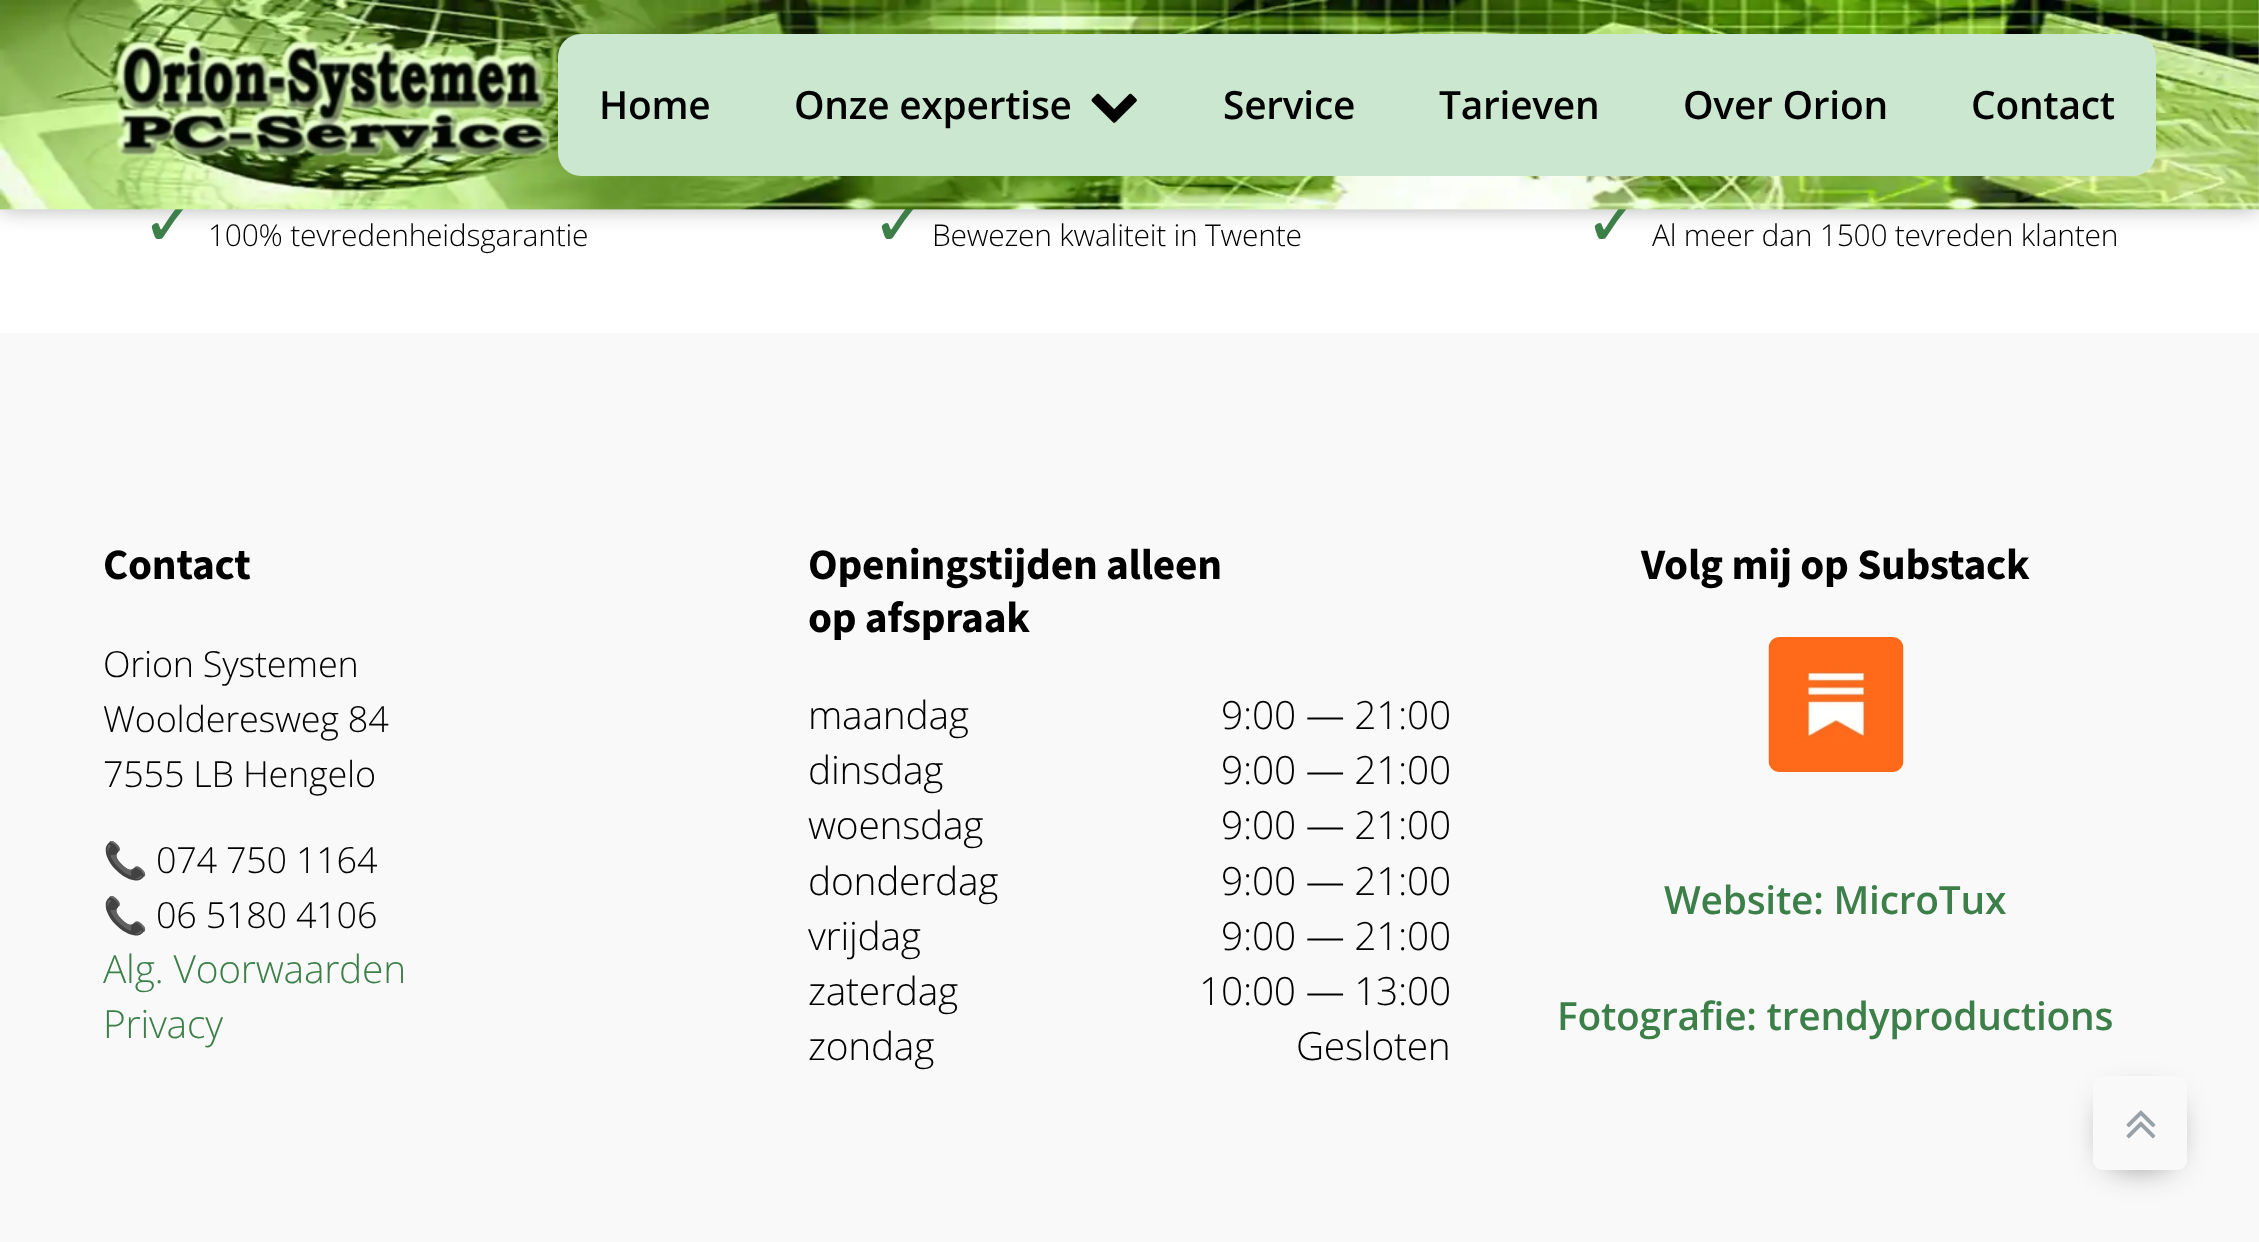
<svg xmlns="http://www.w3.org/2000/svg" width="2259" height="1242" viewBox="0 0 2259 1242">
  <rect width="100%" height="100%" fill="#fff"/>
  <path d="M0 0h2259v209H0z" fill="#0000004d" filter="blur(11px)"/>
  <path d="M0 333h2259v909H0z" fill="#f9f9f9"/>
  <image x="1768" y="637" width="136" height="135" href="img/4.png"/>
  <path d="M2115 1107h50v50H2115z" fill="#1e1e1e" filter="blur(19px)"/>
  <rect x="2093" y="1076" width="94" height="94" rx="9" fill="#f9f9fa"/>
  <image x="2126" y="1110" width="30" height="29" href="img/5.png"/>
  <text x="141" y="246" font-family="DejaVu Sans" font-size="72" letter-spacing="-0.25" fill="#3c7f49">✓</text>
  <text x="208" y="246" font-family="Open Sans" font-size="30" font-weight="300" letter-spacing="-0.25" fill="#000">100% tevredenheidsgarantie</text>
  <text x="871" y="246" font-family="DejaVu Sans" font-size="72" letter-spacing="-0.25" fill="#3c7f49">✓</text>
  <text x="932" y="246" font-family="Open Sans" font-size="30" font-weight="300" letter-spacing="-0.25" fill="#000">Bewezen kwaliteit in Twente</text>
  <text x="1584" y="246" font-family="DejaVu Sans" font-size="72" letter-spacing="-0.25" fill="#3c7f49">✓</text>
  <image x="0" y="0" width="2259" height="210" href="img/1.png"/>
  <rect x="558" y="34" width="1598" height="142" rx="23" fill="#cbe7d0"/>
  <g font-family="Open Sans" font-size="38.9" font-weight="600" letter-spacing="-0.25" fill="#000">
    <text x="1971" y="119">Contact</text>
    <text x="1683" y="119">Over Orion</text>
    <text x="1439" y="119">Tarieven</text>
    <text x="1223" y="119">Service</text>
  </g>
  <image x="1091" y="93" width="46" height="30" href="img/3.png"/>
  <g font-family="Open Sans" font-size="38.9" font-weight="600" letter-spacing="-0.25" fill="#000">
    <text x="794" y="119">Onze expertise</text>
    <text x="599" y="119">Home</text>
  </g>
  <image x="115" y="39" width="440" height="120" href="img/2.png"/>
  <text x="1652" y="246" font-family="Open Sans" font-size="30" font-weight="300" letter-spacing="-0.25" fill="#000">Al meer dan 1500 tevreden klanten</text>
  <text x="103" y="579" font-family="'Source Sans 3'" font-size="43.4" font-weight="bold" letter-spacing="-0.25" fill="#000">Contact</text>
  <g font-family="Open Sans" font-size="36" font-weight="300" letter-spacing="-0.25" fill="#000">
    <text x="103" y="677">Orion Systemen</text>
    <text x="103" y="732">Woolderesweg 84</text>
    <text x="103" y="787">7555 LB Hengelo</text>
  </g>
  <text x="103" y="873" font-family="Noto Color Emoji" font-size="36" letter-spacing="-0.25" fill="#000">📞</text>
  <text x="156" y="873" font-family="Open Sans" font-size="36" font-weight="300" letter-spacing="-0.25" fill="#000">074 750 1164</text>
  <text x="103" y="928" font-family="Noto Color Emoji" font-size="36" letter-spacing="-0.25" fill="#000">📞</text>
  <text x="156" y="928" font-family="Open Sans" font-size="36" font-weight="300" letter-spacing="-0.25" fill="#000">06 5180 4106</text>
  <g font-family="Open Sans" font-size="38.9" font-weight="300" letter-spacing="-0.25" fill="#3c7f49">
    <text x="103" y="983">Alg. Voorwaarden</text>
    <text x="103" y="1038">Privacy</text>
  </g>
  <g font-family="'Source Sans 3'" font-size="43.4" font-weight="bold" letter-spacing="-0.25" fill="#000">
    <text x="808" y="579">Openingstijden alleen</text>
    <text x="808" y="632">op afspraak</text>
  </g>
  <g font-family="Open Sans" font-size="38.9" font-weight="300" letter-spacing="-0.25" fill="#000">
    <text x="808" y="729">maandag</text>
    <text x="1221" y="729">9:00 — 21:00</text>
    <text x="808" y="784">dinsdag</text>
    <text x="1221" y="784">9:00 — 21:00</text>
    <text x="808" y="839">woensdag</text>
    <text x="1221" y="839">9:00 — 21:00</text>
    <text x="808" y="895">donderdag</text>
    <text x="1221" y="895">9:00 — 21:00</text>
    <text x="808" y="950">vrijdag</text>
    <text x="1221" y="950">9:00 — 21:00</text>
    <text x="808" y="1005">zaterdag</text>
    <text x="1199" y="1005">10:00 — 13:00</text>
    <text x="808" y="1060">zondag</text>
    <text x="1296" y="1060">Gesloten</text>
  </g>
  <text x="1641" y="579" font-family="'Source Sans 3'" font-size="43.4" font-weight="bold" letter-spacing="-0.25" fill="#000">Volg mij op Substack</text>
  <g font-family="Open Sans" font-size="38.9" font-weight="600" letter-spacing="-0.25" fill="#3c7f49">
    <text x="1664" y="914">Website: MicroTux</text>
    <text x="1557" y="1030">Fotografie: trendyproductions</text>
  </g>
</svg>
